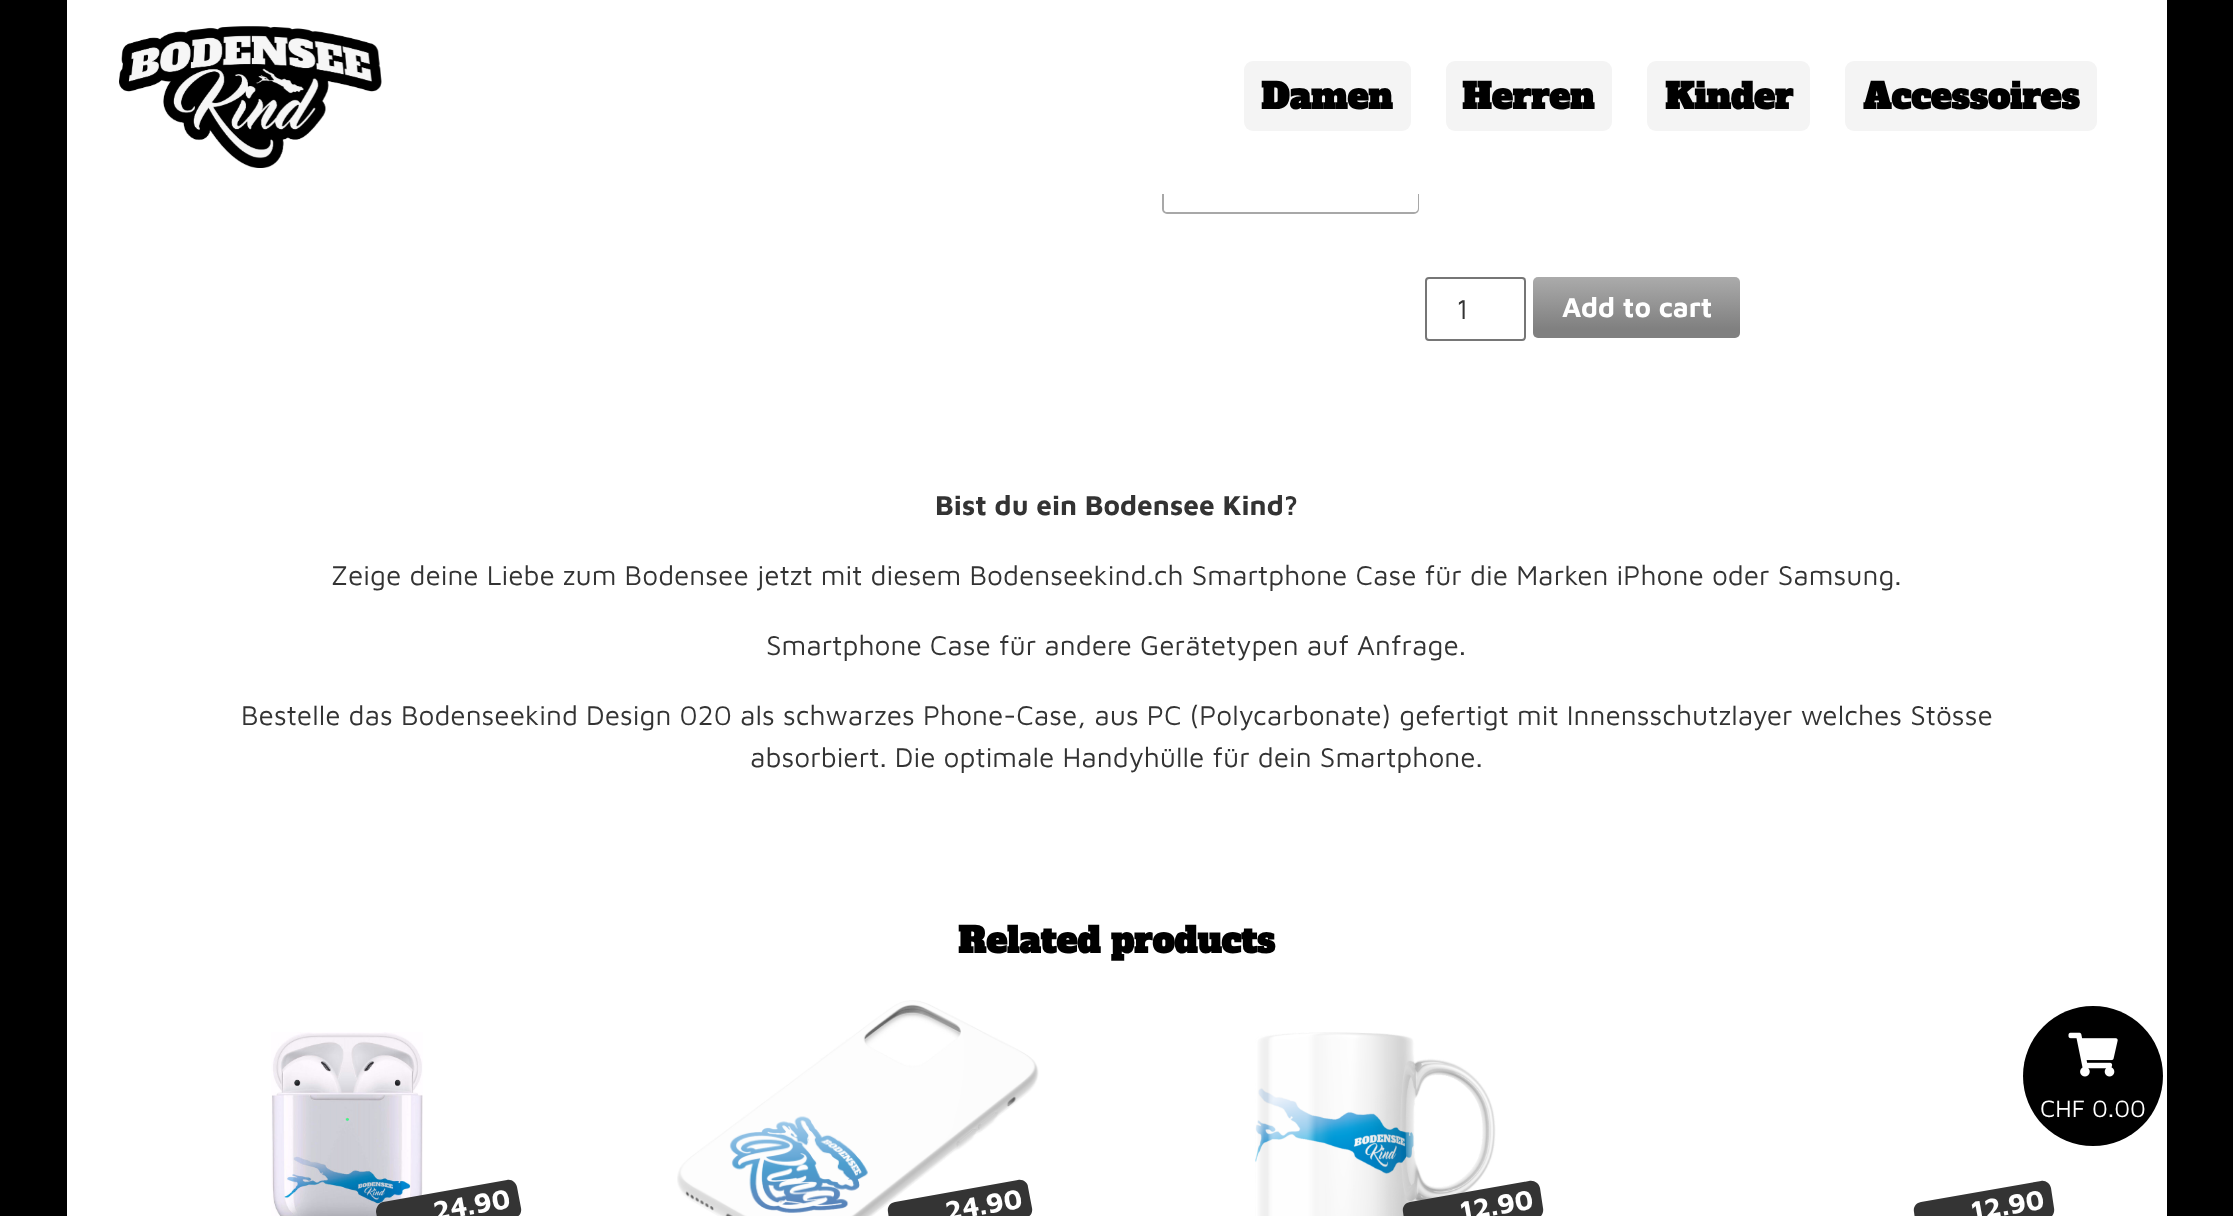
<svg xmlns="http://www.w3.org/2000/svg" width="2233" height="1216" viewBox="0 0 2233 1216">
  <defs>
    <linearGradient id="g1" gradientUnits="userSpaceOnUse" x1="1636" y1="338" x2="1636" y2="277"><stop offset="0.15" stop-color="#808080"/><stop offset="1" stop-color="#ababab"/></linearGradient>
  </defs>
  <rect width="100%" height="100%" fill="#000"/>
  <path d="M67 150h2100v1066H67z" fill="#fff"/>
  <rect x="1163" y="159" width="255" height="54" rx="4" fill="none" stroke="#a8a8a8" stroke-width="2"/>
  <rect x="1164" y="159" width="254" height="53" rx="4" fill="#fff"/>
  <path d="M67 0H2167V150C2167 174.5 2147.5 194 2123 194H111C86.5 194 67 174.5 67 150Z" fill="#fff"/>
  <image x="119" y="26" width="263" height="142" href="img/1.png"/>
  <rect x="1244" y="61" width="167" height="70" rx="9" fill="#f4f4f4"/>
  <rect x="1446" y="61" width="166" height="70" rx="9" fill="#f4f4f4"/>
  <rect x="1647" y="61" width="163" height="70" rx="9" fill="#f4f4f4"/>
  <rect x="1845" y="61" width="252" height="70" rx="9" fill="#f4f4f4"/>
  <rect x="1426" y="278" width="99" height="62" rx="3" fill="none" stroke="#767676" stroke-width="2"/>
  <rect x="1533" y="277" width="207" height="61" rx="5" fill="url(#g1)"/>
  <image x="271" y="1032" width="152" height="184" href="img/2.png"/>
  <path d="M383 1202L507 1180C512 1179 516 1183 517 1187L521 1208C522 1213 519 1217 514 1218L390 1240C385 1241 381 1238 380 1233L376 1212C376 1207 379 1203 383 1202Z" fill="#343434"/>
  <image x="677" y="1000" width="362" height="216" href="img/3.png"/>
  <path d="M895 1202L1018 1180C1023 1179 1028 1183 1028 1187L1032 1208C1033 1213 1030 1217 1025 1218L901 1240C897 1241 892 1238 891 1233L888 1212C887 1207 890 1203 895 1202Z" fill="#343434"/>
  <image x="1255" y="1032" width="241" height="184" href="img/4.png"/>
  <path d="M1410 1202L1529 1181C1534 1180 1539 1183 1540 1188L1543 1208C1544 1213 1541 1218 1536 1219L1416 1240C1412 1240 1407 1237 1406 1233L1403 1212C1402 1207 1405 1203 1410 1202Z" fill="#343434"/>
  <path d="M1921 1202L2041 1181C2045 1180 2050 1183 2051 1188L2054 1208C2055 1213 2052 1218 2047 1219L1928 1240C1923 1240 1918 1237 1917 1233L1914 1212C1913 1207 1916 1203 1921 1202Z" fill="#343434"/>
  <circle cx="2093" cy="1076" r="70" fill="#000"/>
  <image x="2068" y="1032" width="50" height="45" href="img/5.png"/>
  <g font-family="Alfa Slab One" font-size="35" font-weight="bold" fill="#000">
    <text x="1261" y="109">Damen</text>
    <text x="1462" y="109">Herren</text>
    <text x="1665" y="109">Kinder</text>
    <text x="1863" y="109">Accessoires</text>
  </g>
  <text x="1456" y="319" font-family="Maven Pro" font-size="28" fill="#333">1</text>
  <text x="1562" y="317" font-family="Maven Pro" font-size="28" font-weight="bold" fill="#fff">Add to cart</text>
  <text x="935" y="515" font-family="Maven Pro" font-size="28" font-weight="bold" fill="#333">Bist du ein Bodensee Kind?</text>
  <g font-family="Maven Pro" font-size="28" fill="#333">
    <text x="331" y="585">Zeige deine Liebe zum Bodensee jetzt mit diesem Bodenseekind.ch Smartphone Case für die Marken iPhone oder Samsung.</text>
    <text x="766" y="655">Smartphone Case für andere Gerätetypen auf Anfrage.</text>
    <text x="241" y="725">Bestelle das Bodenseekind Design 020 als schwarzes Phone-Case, aus PC (Polycarbonate) gefertigt mit Innensschutzlayer welches Stösse</text>
    <text x="750" y="767">absorbiert. Die optimale Handyhülle für dein Smartphone.</text>
  </g>
  <text x="958" y="953" font-family="Alfa Slab One" font-size="35" font-weight="bold" fill="#000">Related products</text>
  <g font-family="Maven Pro" font-size="28" font-weight="bold" fill="#fff">
    <text x="435" y="1221" transform="rotate(-10 435 1221)">24.90</text>
    <text x="947" y="1221" transform="rotate(-10 947 1221)">24.90</text>
    <text x="1462" y="1221" transform="rotate(-10 1462 1221)">12.90</text>
    <text x="1973" y="1221" transform="rotate(-10 1973 1221)">12.90</text>
  </g>
  <text x="2040" y="1117" font-family="Maven Pro" font-size="24.5" fill="#fff">CHF 0.00</text>
</svg>
